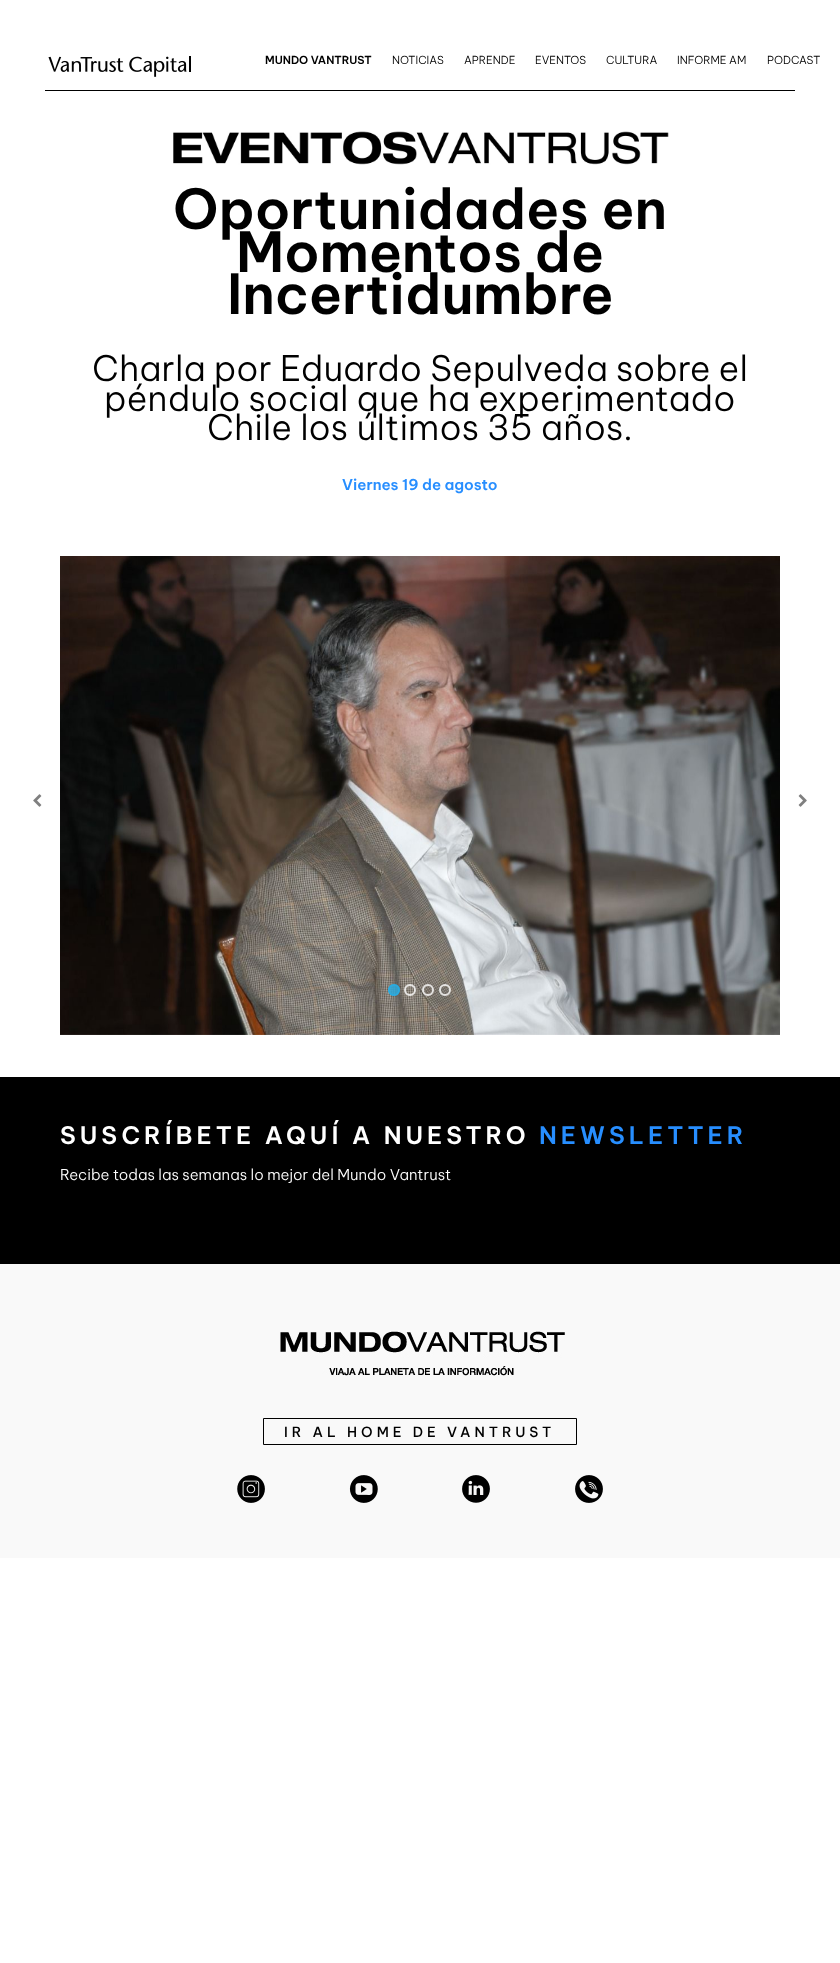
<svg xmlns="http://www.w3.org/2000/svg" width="840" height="1963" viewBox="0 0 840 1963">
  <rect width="100%" height="100%" fill="#fff"/>
  <path d="M45 90h750v1H45z" fill="#000"/>
  <image x="48" y="56" width="143" height="21" href="img/1.png"/>
  <image x="173" y="131" width="496" height="34" href="img/2.png"/>
  <image x="33" y="794" width="9" height="13" href="img/3.png"/>
  <image x="60" y="556" width="720" height="479" href="img/4.png"/>
  <image x="798" y="794" width="9" height="13" href="img/5.png"/>
  <circle cx="394" cy="990" r="6" fill="#28ace2cc"/>
  <circle cx="394" cy="990" r="5" fill="none" stroke="#28ace2cc" stroke-width="2"/>
  <circle cx="410" cy="990" r="5" fill="none" stroke="#ffffffcc" stroke-width="2"/>
  <circle cx="428" cy="990" r="5" fill="none" stroke="#ffffffcc" stroke-width="2"/>
  <circle cx="445" cy="990" r="5" fill="none" stroke="#ffffffcc" stroke-width="2"/>
  <path d="M0 1077h840v187H0z" fill="#000"/>
  <path d="M0 1264h840v294H0z" fill="#f9f9f9"/>
  <image x="280" y="1331" width="285" height="45" href="img/6.png"/>
  <path d="M263.5 1418.5h313v26H263.5z" fill="none" stroke="#000"/>
  <image x="237" y="1475" width="28" height="28" href="img/7.png"/>
  <image x="349" y="1475" width="29" height="28" href="img/8.png"/>
  <image x="462" y="1475" width="28" height="28" href="img/9.png"/>
  <image x="575" y="1475" width="28" height="28" href="img/10.png"/>
  <text x="265" y="64" font-family="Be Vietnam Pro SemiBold" font-size="11" font-weight="600" fill="#000">MUNDO VANTRUST</text>
  <g font-family="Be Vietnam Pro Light" font-size="11" font-weight="300" fill="#000">
    <text x="392" y="64">NOTICIAS</text>
    <text x="464" y="64">APRENDE</text>
    <text x="535" y="64">EVENTOS</text>
    <text x="606" y="64">CULTURA</text>
    <text x="677" y="64">INFORME AM</text>
    <text x="767" y="64">PODCAST</text>
  </g>
  <g font-family="Be Vietnam Pro SemiBold" font-size="55" font-weight="600" fill="#000">
    <text x="173" y="229">Oportunidades en</text>
    <text x="236" y="272">Momentos de</text>
    <text x="227" y="314">Incertidumbre</text>
  </g>
  <g font-family="Be Vietnam Pro Light" font-size="35" font-weight="300" fill="#000">
    <text x="92" y="381">Charla por Eduardo Sepulveda sobre el</text>
    <text x="104" y="411">péndulo social que ha experimentado</text>
    <text x="207" y="440">Chile los últimos 35 años.</text>
  </g>
  <text x="342" y="490" font-family="Be Vietnam Pro SemiBold" font-size="15" font-weight="600" fill="#278eff">Viernes 19 de agosto</text>
  <text x="60" y="1144" font-family="Be Vietnam Pro SemiBold" font-size="24" font-weight="600" letter-spacing="4" fill="#fff">SUSCRÍBETE AQUÍ A NUESTRO</text>
  <text x="539" y="1144" font-family="Be Vietnam Pro SemiBold" font-size="24" font-weight="600" letter-spacing="4" fill="#278eff">NEWSLETTER</text>
  <text x="60" y="1180" font-family="Be Vietnam Pro Light" font-size="15" font-weight="300" fill="#fff">Recibe todas las semanas lo mejor del Mundo Vantrust</text>
  <text x="284" y="1437" font-family="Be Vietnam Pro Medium" font-size="14" font-weight="500" letter-spacing="4" fill="#000">IR AL HOME DE VANTRUST</text>
</svg>
